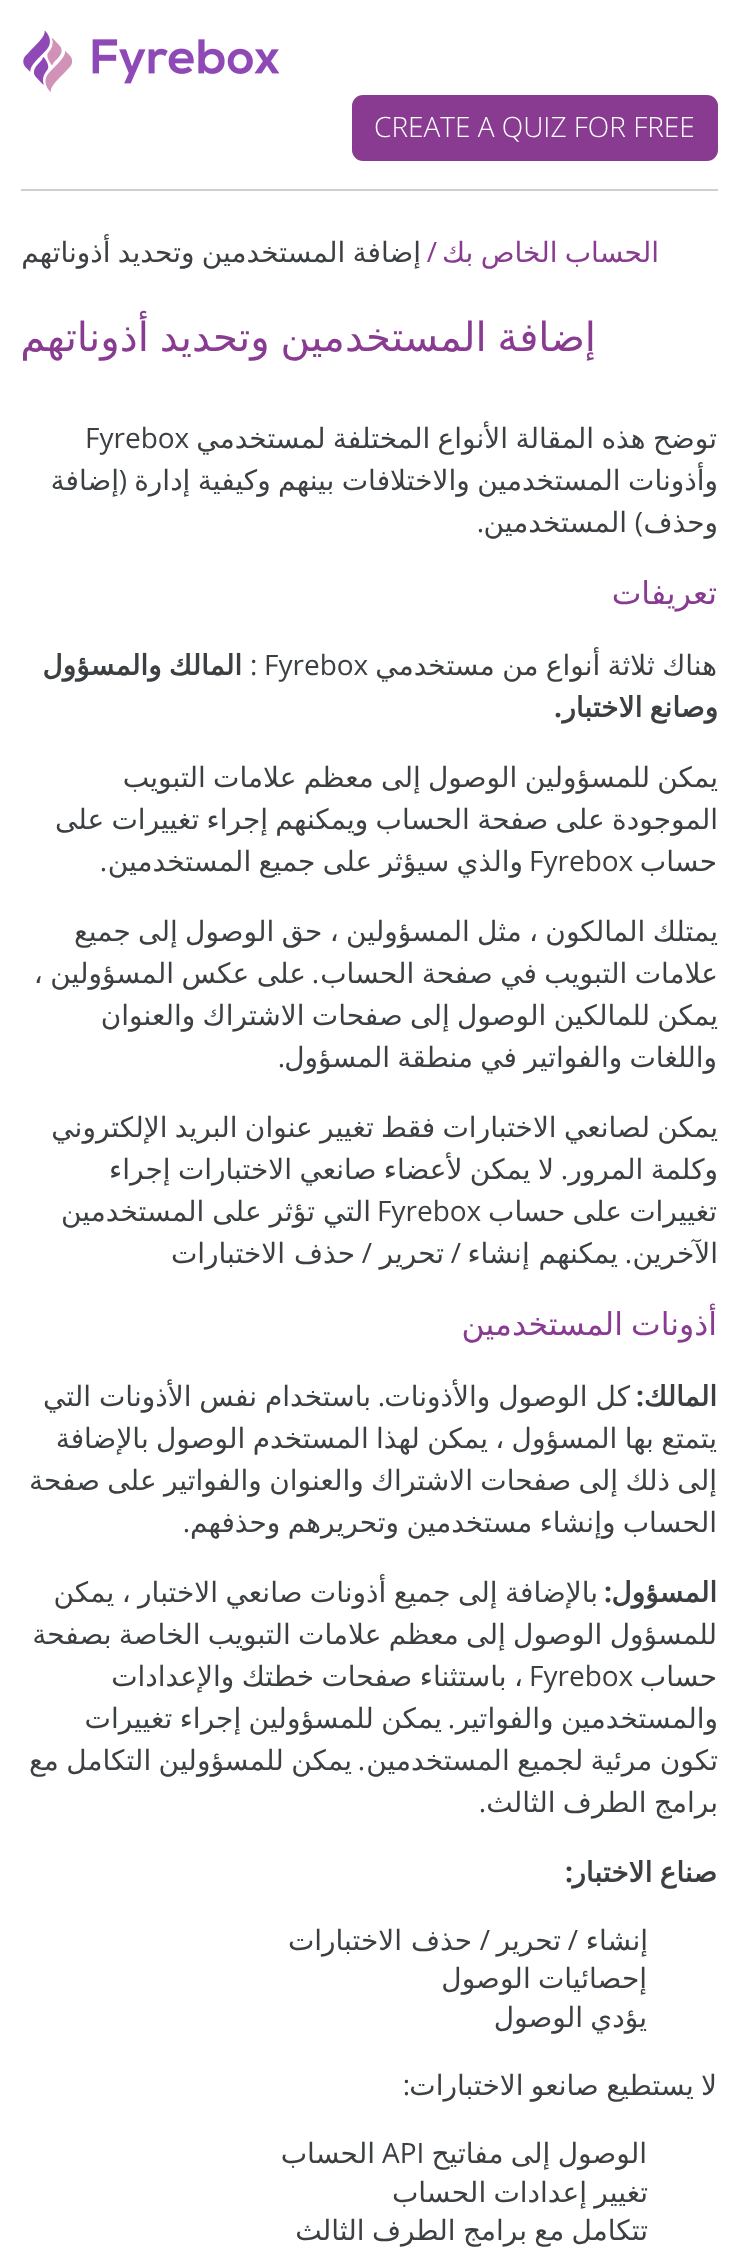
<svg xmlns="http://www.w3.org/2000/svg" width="737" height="2255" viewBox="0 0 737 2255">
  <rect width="100%" height="100%" fill="#fff"/>
  <image x="23" y="30" width="257" height="62" href="img/1.png"/>
  <rect x="352" y="95" width="366" height="66" rx="11" fill="#883b90"/>
  <path d="M21 189h697v2H21z" fill="#cecfd0"/>
  <text x="374" y="137" font-family="Open Sans" font-size="28" font-weight="300" fill="#fff">CREATE A QUIZ FOR FREE</text>
  <text x="659" y="262" word-spacing="-1.6" font-family="DejaVu Sans" font-size="28" direction="rtl" fill="#883b90">الحساب الخاص بك</text>
  <text x="437" y="262" font-family="Open Sans" font-size="28" direction="rtl" fill="#883b90">/</text>
  <text x="421" y="262" word-spacing="-1.6" font-family="DejaVu Sans" font-size="28" direction="rtl" fill="#3c4043">إضافة المستخدمين وتحديد أذوناتهم</text>
  <text x="596" y="351" word-spacing="-2" font-family="DejaVu Sans" font-size="40.25" direction="rtl" fill="#883b90">إضافة المستخدمين وتحديد أذوناتهم</text>
  <text x="717" y="448" word-spacing="-1.6" font-family="DejaVu Sans" font-size="28" direction="rtl" fill="#3c4043">توضح هذه المقالة الأنواع المختلفة لمستخدمي</text>
  <text x="85" y="448" font-family="Open Sans" font-size="28" fill="#3c4043">Fyrebox</text>
  <text x="718" y="490" word-spacing="-1.5" font-family="DejaVu Sans" font-size="28" direction="rtl" fill="#3c4043">وأذونات المستخدمين والاختلافات بينهم وكيفية إدارة</text>
  <text x="127" y="490" font-family="Open Sans" font-size="28" direction="rtl" fill="#3c4043">(</text>
  <g font-family="DejaVu Sans" font-size="28" direction="rtl" fill="#3c4043">
    <text x="119" y="490">إضافة</text>
    <text x="718" y="532">وحذف</text>
  </g>
  <text x="643" y="532" font-family="Open Sans" font-size="28" direction="rtl" fill="#3c4043">)</text>
  <text x="627" y="532" font-family="DejaVu Sans" font-size="28" direction="rtl" fill="#3c4043">المستخدمين</text>
  <text x="484" y="532" font-family="Open Sans" font-size="28" direction="rtl" fill="#3c4043">.</text>
  <text x="717" y="604" font-family="DejaVu Sans" font-size="31.5" direction="rtl" fill="#883b90">تعريفات</text>
  <text x="717" y="675" word-spacing="-1.6" font-family="DejaVu Sans" font-size="28" direction="rtl" fill="#3c4043">هناك ثلاثة أنواع من مستخدمي</text>
  <g font-family="Open Sans" font-size="28" fill="#3c4043">
    <text x="264" y="675">Fyrebox</text>
    <text x="250" y="675">:</text>
  </g>
  <text x="242" y="675" word-spacing="-1.6" font-family="DejaVu Sans" font-size="28" font-weight="bold" direction="rtl" fill="#3c4043">المالك والمسؤول</text>
  <text x="562" y="717" font-family="Open Sans" font-size="28" font-weight="bold" direction="rtl" fill="#3c4043">.</text>
  <text x="718" y="717" word-spacing="-1.6" font-family="DejaVu Sans" font-size="28" font-weight="bold" direction="rtl" fill="#3c4043">وصانع الاختبار</text>
  <g font-family="DejaVu Sans" font-size="28" direction="rtl" fill="#3c4043">
    <text x="718" y="787" word-spacing="-1.6">يمكن للمسؤولين الوصول إلى معظم علامات التبويب</text>
    <text x="718" y="829" word-spacing="-1.6">الموجودة على صفحة الحساب ويمكنهم إجراء تغييرات على</text>
    <text x="717" y="871">حساب</text>
  </g>
  <text x="529" y="871" font-family="Open Sans" font-size="28" fill="#3c4043">Fyrebox</text>
  <text x="523" y="871" word-spacing="-1.5" font-family="DejaVu Sans" font-size="28" direction="rtl" fill="#3c4043">والذي سيؤثر على جميع المستخدمين</text>
  <text x="107" y="871" font-family="Open Sans" font-size="28" direction="rtl" fill="#3c4043">.</text>
  <g font-family="DejaVu Sans" font-size="28" direction="rtl" fill="#3c4043">
    <text x="718" y="941" word-spacing="-1.6">يمتلك المالكون ، مثل المسؤولين ، حق الوصول إلى جميع</text>
    <text x="718" y="983" word-spacing="-1.5">علامات التبويب في صفحة الحساب</text>
  </g>
  <text x="319" y="983" font-family="Open Sans" font-size="28" direction="rtl" fill="#3c4043">.</text>
  <g font-family="DejaVu Sans" font-size="28" direction="rtl" fill="#3c4043">
    <text x="306" y="983" word-spacing="-1.5">على عكس المسؤولين ،</text>
    <text x="718" y="1025" word-spacing="-1.6">يمكن للمالكين الوصول إلى صفحات الاشتراك والعنوان</text>
    <text x="717" y="1067" word-spacing="-1.6">واللغات والفواتير في منطقة المسؤول</text>
  </g>
  <text x="285" y="1067" font-family="Open Sans" font-size="28" direction="rtl" fill="#3c4043">.</text>
  <g font-family="DejaVu Sans" font-size="28" direction="rtl" fill="#3c4043">
    <text x="718" y="1137" word-spacing="-1.6">يمكن لصانعي الاختبارات فقط تغيير عنوان البريد الإلكتروني</text>
    <text x="718" y="1179" word-spacing="-1.5">وكلمة المرور</text>
  </g>
  <text x="568" y="1179" font-family="Open Sans" font-size="28" direction="rtl" fill="#3c4043">.</text>
  <g font-family="DejaVu Sans" font-size="28" direction="rtl" fill="#3c4043">
    <text x="554" y="1179" word-spacing="-1.5">لا يمكن لأعضاء صانعي الاختبارات إجراء</text>
    <text x="717" y="1221" word-spacing="-1.6">تغييرات على حساب</text>
  </g>
  <text x="377" y="1221" font-family="Open Sans" font-size="28" fill="#3c4043">Fyrebox</text>
  <g font-family="DejaVu Sans" font-size="28" direction="rtl" fill="#3c4043">
    <text x="371" y="1221" word-spacing="-1">التي تؤثر على المستخدمين</text>
    <text x="718" y="1263">الآخرين</text>
  </g>
  <text x="632" y="1263" font-family="Open Sans" font-size="28" direction="rtl" fill="#3c4043">.</text>
  <text x="618" y="1263" font-family="DejaVu Sans" font-size="28" direction="rtl" fill="#3c4043">يمكنهم إنشاء</text>
  <text x="461" y="1263" font-family="Open Sans" font-size="28" direction="rtl" fill="#3c4043">/</text>
  <text x="444" y="1263" font-family="DejaVu Sans" font-size="28" direction="rtl" fill="#3c4043">تحرير</text>
  <text x="372" y="1263" font-family="Open Sans" font-size="28" direction="rtl" fill="#3c4043">/</text>
  <text x="355" y="1263" font-family="DejaVu Sans" font-size="28" direction="rtl" fill="#3c4043">حذف الاختبارات</text>
  <text x="717" y="1335" word-spacing="-2" font-family="DejaVu Sans" font-size="31.5" direction="rtl" fill="#883b90">أذونات المستخدمين</text>
  <text x="717" y="1406" font-family="DejaVu Sans" font-size="28" font-weight="bold" direction="rtl" fill="#3c4043">المالك</text>
  <text x="644" y="1406" font-family="Open Sans" font-size="28" font-weight="bold" direction="rtl" fill="#3c4043">:</text>
  <text x="630" y="1406" word-spacing="-1" font-family="DejaVu Sans" font-size="28" direction="rtl" fill="#3c4043">كل الوصول والأذونات</text>
  <text x="385" y="1406" font-family="Open Sans" font-size="28" direction="rtl" fill="#3c4043">.</text>
  <g font-family="DejaVu Sans" font-size="28" direction="rtl" fill="#3c4043">
    <text x="371" y="1406" word-spacing="-1">باستخدام نفس الأذونات التي</text>
    <text x="717" y="1448" word-spacing="-1.6">يتمتع بها المسؤول ، يمكن لهذا المستخدم الوصول بالإضافة</text>
    <text x="717" y="1490" word-spacing="-1.6">إلى ذلك إلى صفحات الاشتراك والعنوان والفواتير على صفحة</text>
    <text x="717" y="1532" word-spacing="-1.6">الحساب وإنشاء مستخدمين وتحريرهم وحذفهم</text>
  </g>
  <text x="190" y="1532" font-family="Open Sans" font-size="28" direction="rtl" fill="#3c4043">.</text>
  <text x="717" y="1602" font-family="DejaVu Sans" font-size="28" font-weight="bold" direction="rtl" fill="#3c4043">المسؤول</text>
  <text x="612" y="1602" font-family="Open Sans" font-size="28" font-weight="bold" direction="rtl" fill="#3c4043">:</text>
  <g font-family="DejaVu Sans" font-size="28" direction="rtl" fill="#3c4043">
    <text x="598" y="1602" word-spacing="-1.5">بالإضافة إلى جميع أذونات صانعي الاختبار ، يمكن</text>
    <text x="717" y="1644" word-spacing="-1.6">للمسؤول الوصول إلى معظم علامات التبويب الخاصة بصفحة</text>
    <text x="717" y="1686">حساب</text>
  </g>
  <text x="529" y="1686" font-family="Open Sans" font-size="28" fill="#3c4043">Fyrebox</text>
  <g font-family="DejaVu Sans" font-size="28" direction="rtl" fill="#3c4043">
    <text x="523" y="1686" word-spacing="-1.5">، باستثناء صفحات خطتك والإعدادات</text>
    <text x="718" y="1728" word-spacing="-1.5">والمستخدمين والفواتير</text>
  </g>
  <text x="455" y="1728" font-family="Open Sans" font-size="28" direction="rtl" fill="#3c4043">.</text>
  <g font-family="DejaVu Sans" font-size="28" direction="rtl" fill="#3c4043">
    <text x="442" y="1728" word-spacing="-1.5">يمكن للمسؤولين إجراء تغييرات</text>
    <text x="718" y="1770" word-spacing="-1.5">تكون مرئية لجميع المستخدمين</text>
  </g>
  <text x="365" y="1770" font-family="Open Sans" font-size="28" direction="rtl" fill="#3c4043">.</text>
  <g font-family="DejaVu Sans" font-size="28" direction="rtl" fill="#3c4043">
    <text x="352" y="1770" word-spacing="-1.5">يمكن للمسؤولين التكامل مع</text>
    <text x="718" y="1812" word-spacing="-1.6">برامج الطرف الثالث</text>
  </g>
  <text x="486" y="1812" font-family="Open Sans" font-size="28" direction="rtl" fill="#3c4043">.</text>
  <text x="573" y="1882" font-family="Open Sans" font-size="28" font-weight="bold" direction="rtl" fill="#3c4043">:</text>
  <text x="717" y="1882" word-spacing="-1.6" font-family="DejaVu Sans" font-size="28" font-weight="bold" direction="rtl" fill="#3c4043">صناع الاختبار</text>
  <text x="648" y="1950" font-family="DejaVu Sans" font-size="28" direction="rtl" fill="#3c4043">إنشاء</text>
  <text x="578" y="1950" font-family="Open Sans" font-size="28" direction="rtl" fill="#3c4043">/</text>
  <text x="561" y="1950" font-family="DejaVu Sans" font-size="28" direction="rtl" fill="#3c4043">تحرير</text>
  <text x="490" y="1950" font-family="Open Sans" font-size="28" direction="rtl" fill="#3c4043">/</text>
  <g font-family="DejaVu Sans" font-size="28" direction="rtl" fill="#3c4043">
    <text x="472" y="1950">حذف الاختبارات</text>
    <text x="647" y="1988" word-spacing="-1.6">إحصائيات الوصول</text>
    <text x="647" y="2027" word-spacing="-1.6">يؤدي الوصول</text>
    <text x="717" y="2095" word-spacing="-1.6">لا يستطيع صانعو الاختبارات</text>
  </g>
  <text x="410" y="2095" font-family="Open Sans" font-size="28" direction="rtl" fill="#3c4043">:</text>
  <text x="647" y="2163" word-spacing="-1.6" font-family="DejaVu Sans" font-size="28" direction="rtl" fill="#3c4043">الوصول إلى مفاتيح</text>
  <text x="382" y="2163" font-family="Open Sans" font-size="28" fill="#3c4043">API</text>
  <g font-family="DejaVu Sans" font-size="28" direction="rtl" fill="#3c4043">
    <text x="375" y="2163">الحساب</text>
    <text x="648" y="2202" word-spacing="-1.6">تغيير إعدادات الحساب</text>
    <text x="648" y="2240" word-spacing="-1.6">تتكامل مع برامج الطرف الثالث</text>
  </g>
</svg>
